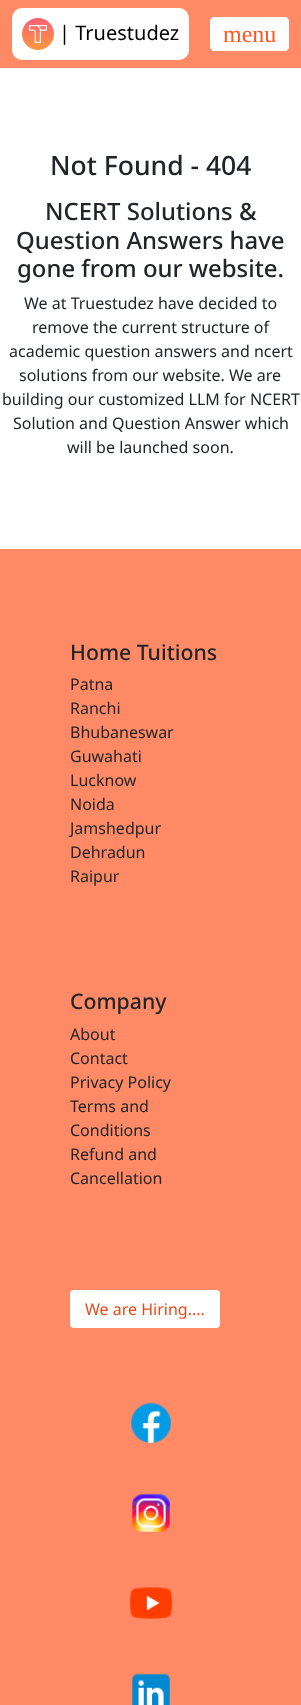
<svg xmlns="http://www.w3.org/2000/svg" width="301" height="1705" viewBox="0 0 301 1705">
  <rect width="100%" height="100%" fill="#fff"/>
  <path d="M0 0h301v68H0z" fill="#ff8a65"/>
  <rect x="12" y="8" width="177" height="52" rx="10" fill="#fff"/>
  <image x="22" y="18" width="32" height="32" href="img/1.png"/>
  <rect x="210.5" y="17.5" width="78" height="33" rx="3.5" fill="#fff" stroke="#fff"/>
  <path d="M0 549h301v1156H0z" fill="#ff8a65"/>
  <rect x="70" y="1290" width="150" height="38" rx="4" fill="#fff"/>
  <image x="131" y="1403" width="40" height="40" href="img/2.png"/>
  <image x="132" y="1494" width="38" height="38" href="img/3.png"/>
  <image x="130" y="1587" width="43" height="32" href="img/4.png"/>
  <image x="132" y="1674" width="38" height="31" href="img/5.png"/>
  <text x="59" y="40" font-family="Noto Sans" font-size="20" fill="#000">| Truestudez</text>
  <text x="223" y="42" font-family="Liberation Serif" font-size="24" fill="#ff5722">menu</text>
  <text x="50" y="175" font-family="Noto Sans" font-size="26.5" font-weight="500" fill="#212529">Not Found - 404</text>
  <g font-family="Noto Sans" font-size="23.9" font-weight="500" fill="#212529">
    <text x="45" y="220">NCERT Solutions &amp;</text>
    <text x="16" y="249">Question Answers have</text>
    <text x="17" y="277">gone from our website.</text>
  </g>
  <g font-family="Noto Sans" font-size="16" fill="#212529">
    <text x="24" y="309">We at Truestudez have decided to</text>
    <text x="32" y="333">remove the current structure of</text>
    <text x="9" y="357">academic question answers and ncert</text>
    <text x="19" y="381">solutions from our website. We are</text>
    <text x="2" y="405">building our customized LLM for NCERT</text>
    <text x="13" y="429">Solution and Question Answer which</text>
    <text x="67" y="453">will be launched soon.</text>
  </g>
  <text x="70" y="660" font-family="Noto Sans" font-size="21.25" font-weight="500" fill="#212529">Home Tuitions</text>
  <g font-family="Noto Sans" font-size="16" fill="#212529">
    <text x="70" y="690">Patna</text>
    <text x="70" y="714">Ranchi</text>
    <text x="70" y="738">Bhubaneswar</text>
    <text x="70" y="762">Guwahati</text>
    <text x="70" y="786">Lucknow</text>
    <text x="70" y="810">Noida</text>
    <text x="70" y="834">Jamshedpur</text>
    <text x="70" y="858">Dehradun</text>
    <text x="70" y="882">Raipur</text>
  </g>
  <text x="70" y="1009" font-family="Noto Sans" font-size="21.25" font-weight="500" fill="#212529">Company</text>
  <g font-family="Noto Sans" font-size="16" fill="#212529">
    <text x="70" y="1040">About</text>
    <text x="70" y="1064">Contact</text>
    <text x="70" y="1088">Privacy Policy</text>
    <text x="70" y="1112">Terms and</text>
    <text x="70" y="1136">Conditions</text>
    <text x="70" y="1160">Refund and</text>
    <text x="70" y="1184">Cancellation</text>
  </g>
  <text x="85" y="1315" font-family="Noto Sans" font-size="16" fill="#e64a19">We are Hiring....</text>
</svg>
